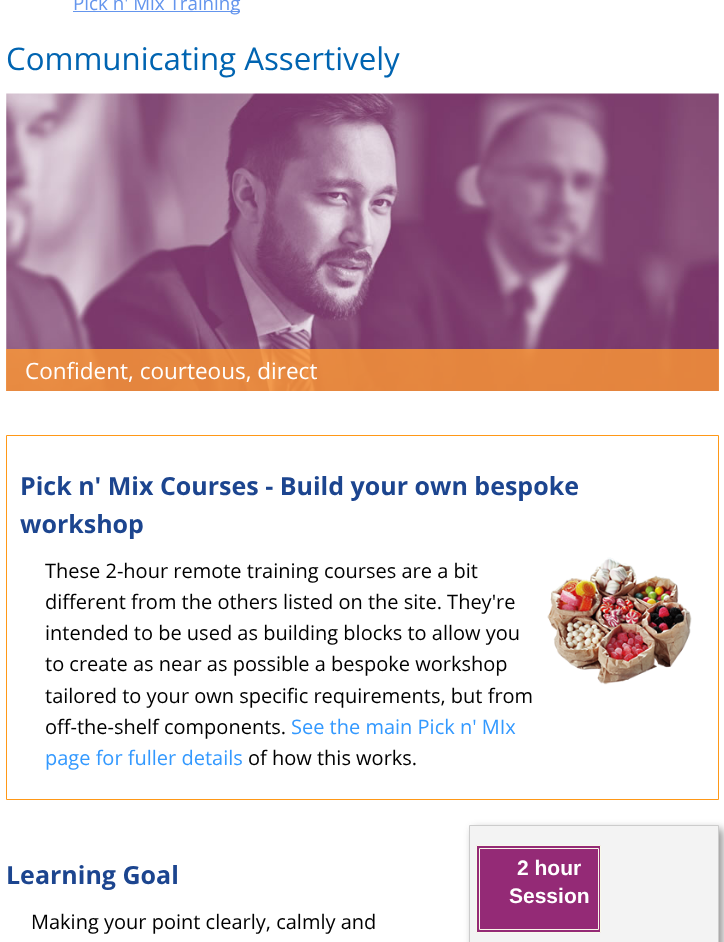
<svg xmlns="http://www.w3.org/2000/svg" width="724" height="942" viewBox="0 0 724 942">
  <rect width="100%" height="100%" fill="#fff"/>
  <path d="M73 11h167v1H73z" fill="#6495ed"/>
  <image x="6" y="93" width="713" height="298" href="img/1.png"/>
  <path d="M6 349h713v42H6z" fill="#ff9933cc"/>
  <path d="M6.5 435.5h712v364H6.5z" fill="none" stroke="#ff9817"/>
  <image x="547" y="557" width="145" height="128" href="img/2.png"/>
  <path d="M473 829h250v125H473z" fill="#2d2c2c80" filter="blur(4px)"/>
  <path d="M469.5 825.5h249v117H469.5z" fill="#f3f3f3" stroke="#ccc"/>
  <path d="M476.5 845.5h124v87H476.5z" fill="#942a76" stroke="#f9f9ea"/>
  <path d="M479.5 848.5h119v81H479.5z" fill="none" stroke="#f9f9ea"/>
  <text x="73" y="10" font-family="Open Sans" font-size="18.75" fill="#6495ed">Pick n' Mix Training</text>
  <text x="6" y="70" font-family="Open Sans" font-size="31.25" fill="#0064b1">Communicating Assertively</text>
  <text x="25" y="379" font-family="Open Sans" font-size="22.5" fill="#fff">Confident, courteous, direct</text>
  <g font-family="Open Sans" font-size="25" font-weight="bold" fill="#1c458f">
    <text x="20" y="495">Pick n' Mix Courses - Build your own bespoke</text>
    <text x="20" y="533">workshop</text>
  </g>
  <g font-family="Open Sans" font-size="20" fill="#000">
    <text x="45" y="578">These 2-hour remote training courses are a bit</text>
    <text x="45" y="609">different from the others listed on the site. They're</text>
    <text x="45" y="640">intended to be used as building blocks to allow you</text>
    <text x="45" y="671">to create as near as possible a bespoke workshop</text>
    <text x="45" y="703">tailored to your own specific requirements, but from</text>
    <text x="45" y="734">off-the-shelf components.</text>
  </g>
  <g font-family="Open Sans" font-size="20" fill="#39f">
    <text x="291" y="734">See the main Pick n' MIx</text>
    <text x="45" y="765">page for fuller details</text>
  </g>
  <text x="248" y="765" font-family="Open Sans" font-size="20" fill="#000">of how this works.</text>
  <text x="6" y="884" font-family="Open Sans" font-size="25" font-weight="bold" fill="#1c458f">Learning Goal</text>
  <g font-family="Liberation Sans" font-size="21" font-weight="bold" fill="#fff">
    <text x="517" y="875">2 hour</text>
    <text x="509" y="903">Session</text>
  </g>
  <text x="31" y="929" font-family="Open Sans" font-size="20" fill="#000">Making your point clearly, calmly and</text>
</svg>
